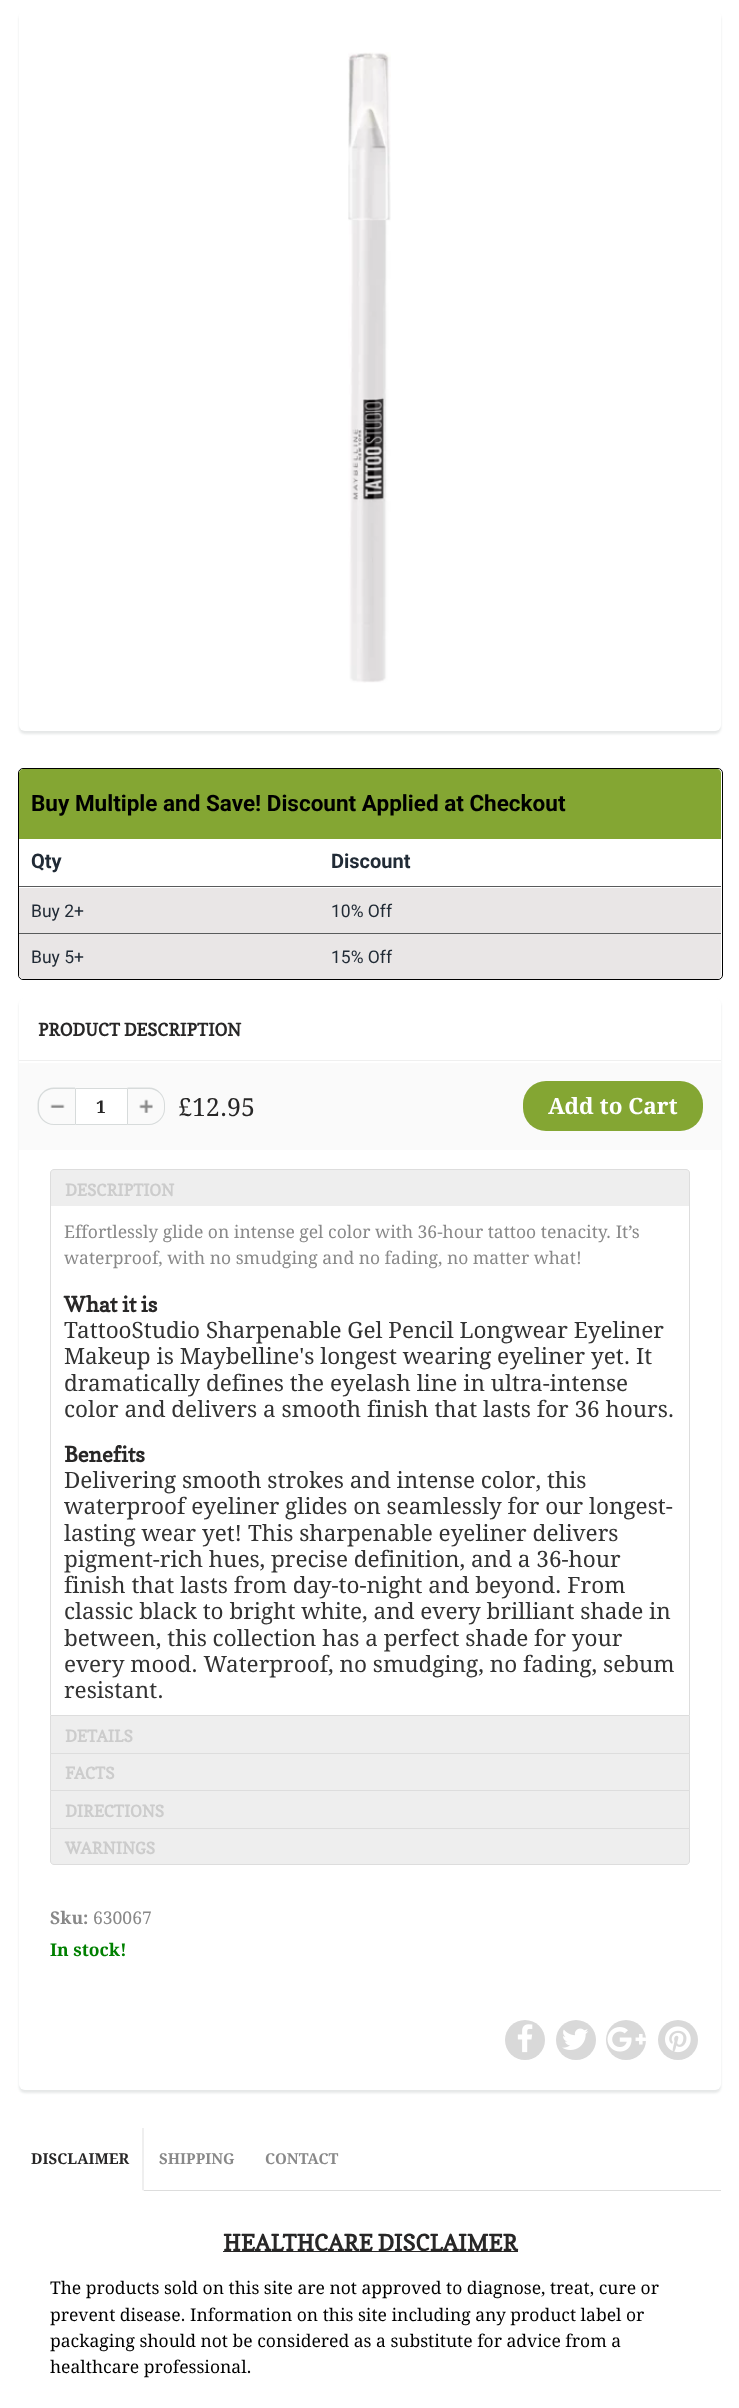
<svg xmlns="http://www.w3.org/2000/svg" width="739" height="2408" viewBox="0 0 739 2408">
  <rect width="100%" height="100%" fill="#fff"/>
  <rect x="19" y="13" width="702" height="721" rx="6" fill="#0b191c1a" filter="blur(1px)"/>
  <rect x="19" y="10" width="702" height="721" rx="6" fill="#fff"/>
  <image x="348" y="52" width="43" height="631" href="img/1.png"/>
  <rect x="18.5" y="768.5" width="704" height="211" rx="4.5" fill="none" stroke="#000"/>
  <path d="M23 769H717C719 769 721 771 721 773V839H19V773C19 771 21 769 23 769Z" fill="#84a633"/>
  <path d="M19 888h702v45H19z" fill="#e9e6e6"/>
  <path d="M19 886h702v1H19z" fill="#595b5c"/>
  <path d="M19 934H319V979H23C21 979 19 977 19 975Z" fill="#e9e6e6"/>
  <path d="M319 934H721V975C721 977 719 979 717 979H319Z" fill="#e9e6e6"/>
  <path d="M19 933h702v1H19z" fill="#595b5c"/>
  <rect x="19" y="1000" width="702" height="1093" rx="6" fill="#0b191c1a" filter="blur(1px)"/>
  <rect x="19" y="998" width="702" height="1092" rx="6" fill="#fff"/>
  <path d="M19 1060h702v1H19z" fill="#efefef"/>
  <path d="M19 1063h702v87H19z" fill="#fafafa"/>
  <image x="50" y="1104" width="15" height="4" href="img/2.png"/>
  <path d="M54 1087.5H75V1125H54C45 1125 37.5 1117.5 37.5 1109V1104C37.5 1095 45 1087.5 54 1087.5ZM54 1089H75V1124H54C45.5 1124 39 1117 39 1109V1104C39 1095.5 45.5 1089 54 1089Z" fill="#d7dbdb" fill-rule="evenodd"/>
  <path d="M75.5 1088.5h52v36H75.5z" fill="#fff" stroke="#d7dbdb"/>
  <image x="139" y="1099" width="14" height="14" href="img/3.png"/>
  <path d="M127.5 1087.5H149C157.5 1087.5 165 1095 165 1104V1109C165 1117.5 157.5 1125 149 1125H127.5ZM127.5 1089H149C157 1089 164 1095.5 164 1104V1109C164 1117 157 1124 149 1124H127.5Z" fill="#d7dbdb" fill-rule="evenodd"/>
  <rect x="523" y="1081" width="180" height="50" rx="23" fill="#84a633"/>
  <path d="M54 1169.5H686C688 1169.5 689.5 1171 689.5 1173V1207.5H50.5V1173C50.5 1171 52 1169.5 54 1169.5Z" fill="#eee" stroke="#ddd"/>
  <path d="M51 1206h638v2H51z" fill="#fff"/>
  <path d="M689 1206h1v509H689z" fill="#ddd"/>
  <path d="M50 1206h1v509H50z" fill="#ddd"/>
  <path d="M50.5 1715.5h639v38H50.5z" fill="#eee" stroke="#ddd"/>
  <path d="M50.5 1753.5h639v37H50.5z" fill="#eee" stroke="#ddd"/>
  <path d="M50.5 1790.5h639v38H50.5z" fill="#eee" stroke="#ddd"/>
  <path d="M50.5 1828.5H689.5V1861C689.5 1863 688 1864.5 686 1864.5H54C52 1864.5 50.5 1863 50.5 1861Z" fill="#eee" stroke="#ddd"/>
  <circle cx="525" cy="2040" r="20" fill="#d9d9d9"/>
  <image x="517" y="2024" width="16" height="29" href="img/4.png"/>
  <circle cx="576" cy="2040" r="20" fill="#d9d9d9"/>
  <image x="562" y="2028" width="26" height="22" href="img/5.png"/>
  <circle cx="626" cy="2040" r="20" fill="#d9d9d9"/>
  <image x="607" y="2027" width="39" height="25" href="img/6.png"/>
  <circle cx="678" cy="2040" r="20" fill="#d9d9d9"/>
  <image x="665" y="2026" width="26" height="27" href="img/7.png"/>
  <path d="M144 2190h577v1H144z" fill="#ddd"/>
  <path d="M144 2128V2191L142 2190V2128Z" fill="#efefef"/>
  <path d="M223 2251h295v1H223z" fill="#282727"/>
  <text x="31" y="811" font-family="Roboto" font-size="22.5" font-weight="bold" fill="#000">Buy Multiple and Save! Discount Applied at Checkout</text>
  <g font-family="Roboto" font-size="20" font-weight="bold" fill="#212b36">
    <text x="31" y="868">Qty</text>
    <text x="331" y="868">Discount</text>
  </g>
  <g font-family="Roboto" font-size="17.5" fill="#212b36">
    <text x="31" y="917">Buy 2+</text>
    <text x="331" y="917">10% Off</text>
    <text x="31" y="963">Buy 5+</text>
    <text x="331" y="963">15% Off</text>
  </g>
  <text x="38" y="1036" font-family="Copse" font-size="17.5" font-weight="bold" fill="#282727">PRODUCT DESCRIPTION</text>
  <text x="96" y="1113" font-family="Droid Serif" font-size="17.5" font-weight="bold" fill="#282727">1</text>
  <text x="178" y="1116" font-family="Droid Serif" font-size="25" fill="#282727">£12.95</text>
  <text x="548" y="1114" font-family="Droid Serif" font-size="22.5" font-weight="bold" fill="#fff">Add to Cart</text>
  <text x="65" y="1196" font-family="Copse" font-size="16.25" font-weight="bold" fill="#ccc">DESCRIPTION</text>
  <g font-family="Droid Serif" font-size="17.5" fill="#898989">
    <text x="64" y="1238">Effortlessly glide on intense gel color with 36-hour tattoo tenacity. It’s</text>
    <text x="64" y="1264">waterproof, with no smudging and no fading, no matter what!</text>
  </g>
  <text x="64" y="1312" font-family="Copse" font-size="21.25" font-weight="bold" fill="#282727">What it is</text>
  <g font-family="Droid Serif" font-size="22.5" fill="#333">
    <text x="64" y="1338">TattooStudio Sharpenable Gel Pencil Longwear Eyeliner</text>
    <text x="64" y="1364">Makeup is Maybelline's longest wearing eyeliner yet. It</text>
    <text x="64" y="1391">dramatically defines the eyelash line in ultra-intense</text>
    <text x="64" y="1417">color and delivers a smooth finish that lasts for 36 hours.</text>
  </g>
  <text x="64" y="1462" font-family="Copse" font-size="21.25" font-weight="bold" fill="#282727">Benefits</text>
  <g font-family="Droid Serif" font-size="22.5" fill="#333">
    <text x="64" y="1488">Delivering smooth strokes and intense color, this</text>
    <text x="64" y="1514">waterproof eyeliner glides on seamlessly for our longest-</text>
    <text x="64" y="1541">lasting wear yet! This sharpenable eyeliner delivers</text>
    <text x="64" y="1567">pigment-rich hues, precise definition, and a 36-hour</text>
    <text x="64" y="1593">finish that lasts from day-to-night and beyond. From</text>
    <text x="64" y="1619">classic black to bright white, and every brilliant shade in</text>
    <text x="64" y="1646">between, this collection has a perfect shade for your</text>
    <text x="64" y="1672">every mood. Waterproof, no smudging, no fading, sebum</text>
    <text x="64" y="1698">resistant.</text>
  </g>
  <g font-family="Copse" font-size="16.25" font-weight="bold" fill="#ccc">
    <text x="65" y="1742">DETAILS</text>
    <text x="65" y="1779">FACTS</text>
    <text x="65" y="1817">DIRECTIONS</text>
    <text x="65" y="1854">WARNINGS</text>
  </g>
  <text x="50" y="1924" font-family="Droid Serif" font-size="17.5" font-weight="bold" fill="#898989">Sku:</text>
  <text x="93" y="1924" font-family="Droid Serif" font-size="17.5" fill="#898989">630067</text>
  <text x="50" y="1956" font-family="Droid Serif" font-size="17.5" font-weight="bold" fill="#008000">In stock!</text>
  <text x="31" y="2164" font-family="Droid Serif" font-size="15" font-weight="bold" fill="#282727">DISCLAIMER</text>
  <g font-family="Droid Serif" font-size="15" font-weight="bold" fill="#898989">
    <text x="159" y="2164">SHIPPING</text>
    <text x="265" y="2164">CONTACT</text>
  </g>
  <text x="223" y="2251" font-family="Copse" font-size="22.5" font-weight="bold" fill="#282727">HEALTHCARE DISCLAIMER</text>
  <g font-family="Droid Serif" font-size="17.5" fill="#000">
    <text x="50" y="2294">The products sold on this site are not approved to diagnose, treat, cure or</text>
    <text x="50" y="2321">prevent disease. Information on this site including any product label or</text>
    <text x="50" y="2347">packaging should not be considered as a substitute for advice from a</text>
    <text x="50" y="2373">healthcare professional.</text>
  </g>
</svg>
